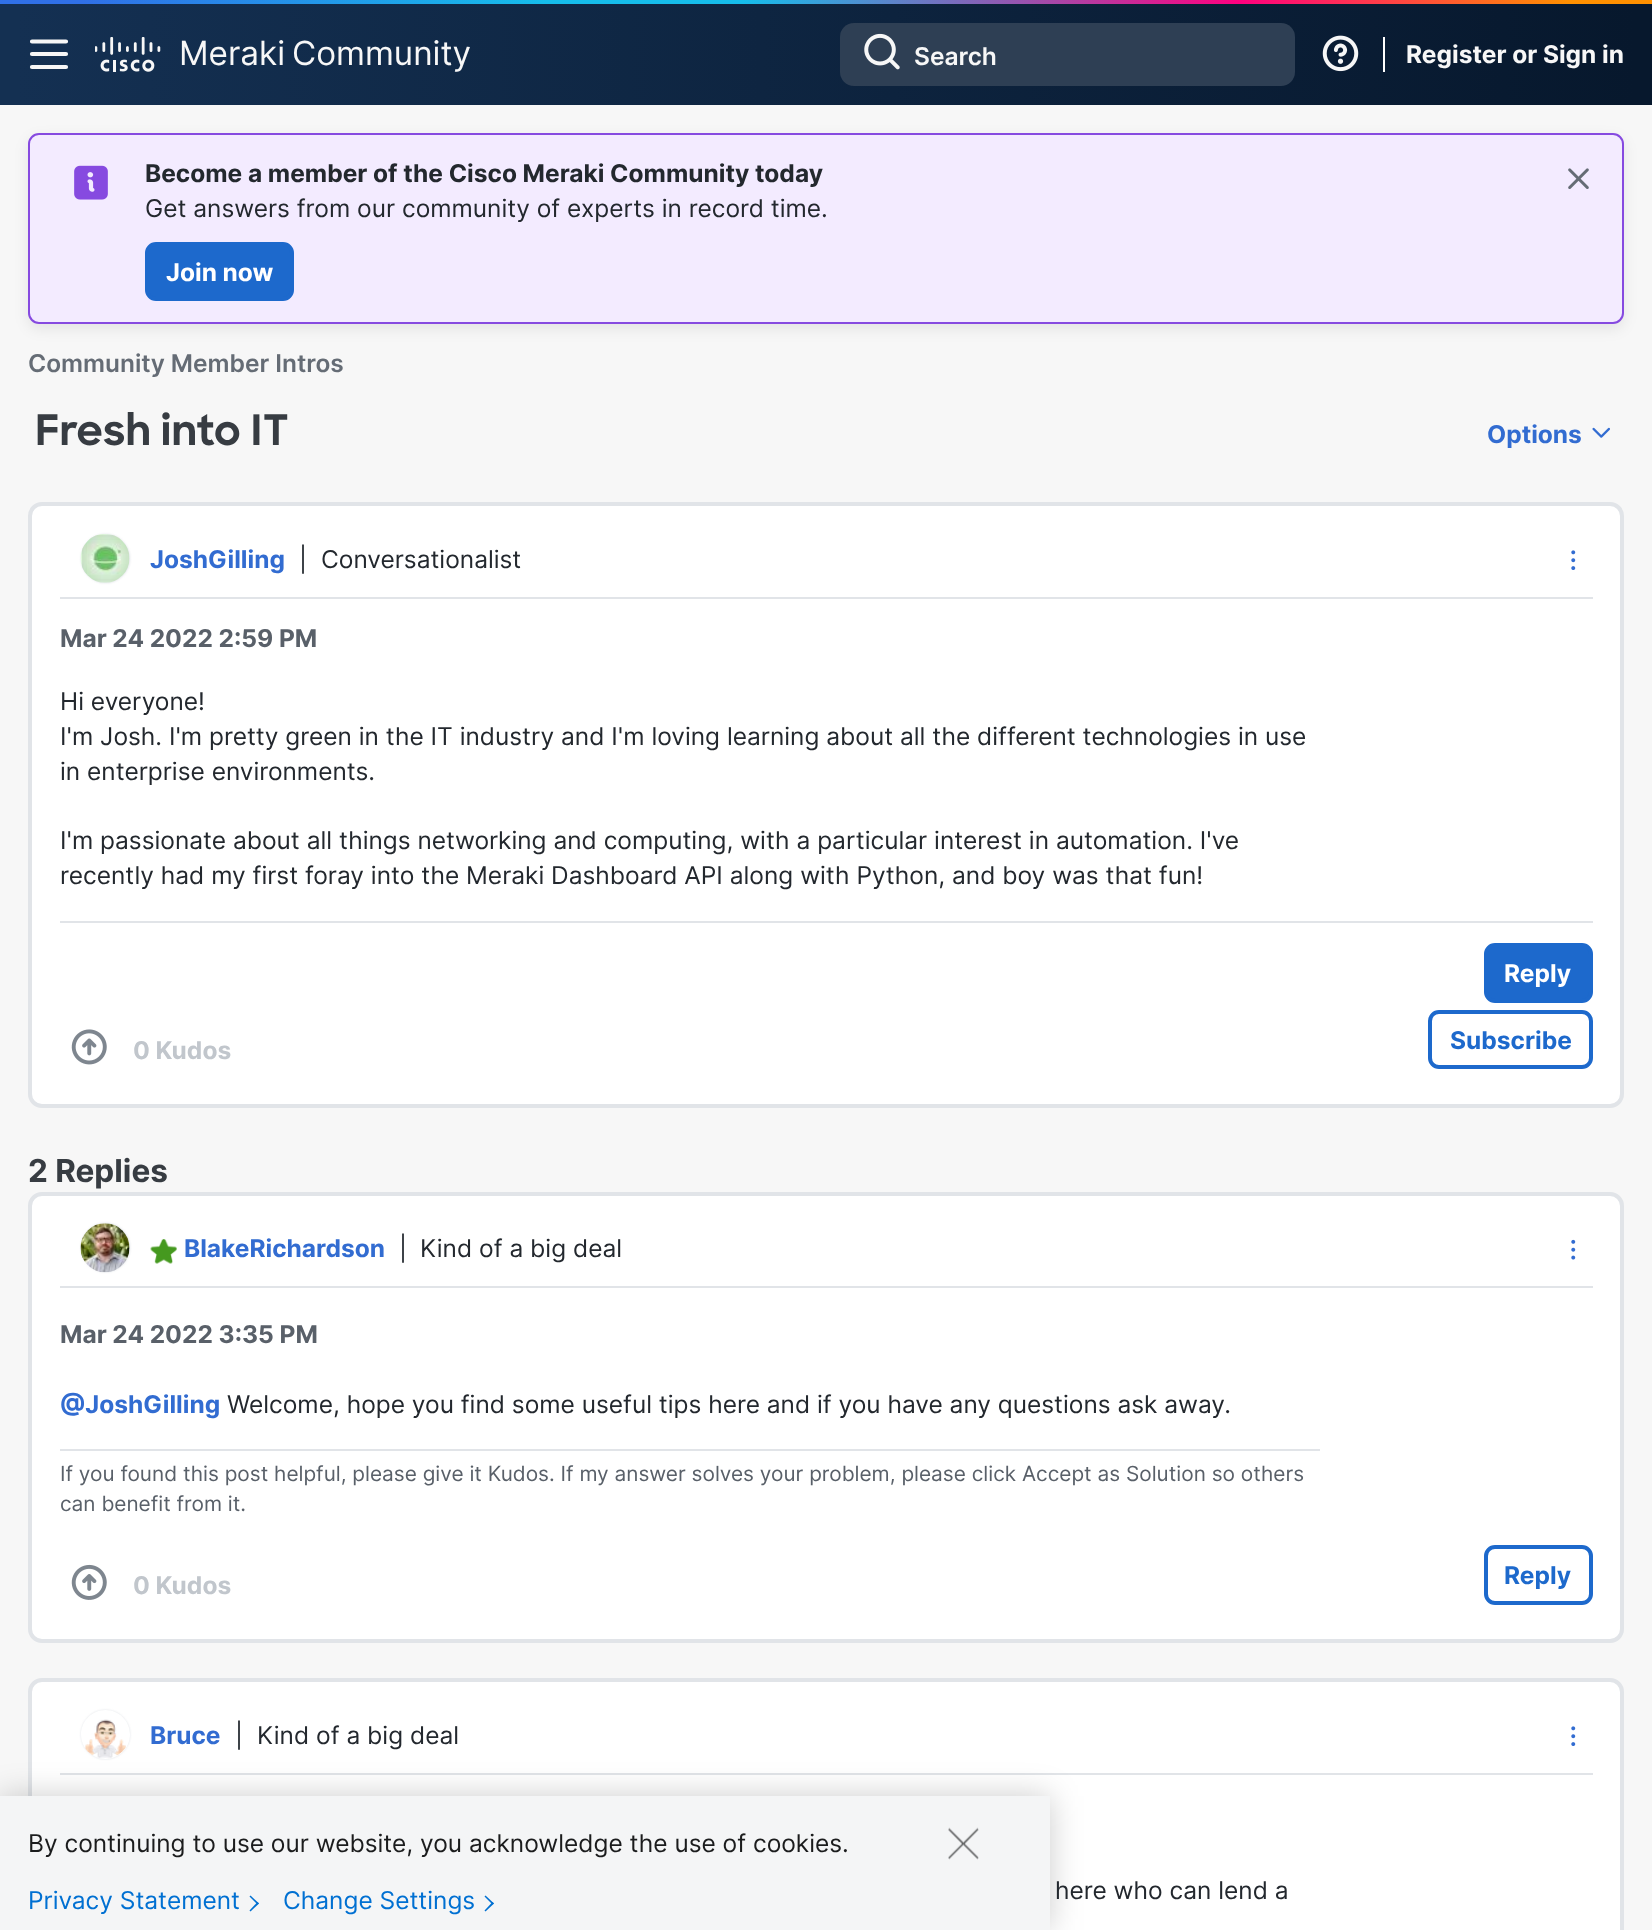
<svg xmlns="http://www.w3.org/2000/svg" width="1652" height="1930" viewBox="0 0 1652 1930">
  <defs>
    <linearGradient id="g1" gradientUnits="userSpaceOnUse" x1="0" y1="53" x2="1652" y2="52"><stop offset="0.01" stop-color="#143052"/><stop offset="0.99" stop-color="#07182d"/></linearGradient>
    <linearGradient id="g2" gradientUnits="userSpaceOnUse" x1="0" y1="1.8" x2="1652" y2="1.7"><stop offset="0.05" stop-color="#3070e7"/><stop offset="0.33" stop-color="#16bdeb"/><stop offset="0.45" stop-color="#16bdeb"/><stop offset="0.75" stop-color="#ff007f"/><stop offset="0.95" stop-color="#ff9000"/></linearGradient>
    <clipPath id="clip1"><path d="M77 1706H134V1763H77ZM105.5 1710C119 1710 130 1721 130 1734.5C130 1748 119 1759 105.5 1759C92 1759 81 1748 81 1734.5C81 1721 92 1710 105.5 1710Z" clip-rule="evenodd"/></clipPath>
  </defs>
  <rect width="100%" height="100%" fill="#f7f7f7"/>
  <path d="M0 4h1652v101H0z" fill="url(#g1)"/>
  <path d="M0 0h1652v4H0z" fill="url(#g2)"/>
  <path d="M32 41.5H66M32 54H66M32 67H66" fill="none" stroke="#f7f7f7" stroke-width="4.2" stroke-linecap="round"/>
  <image x="95" y="37" width="66" height="35" href="img/1.png"/>
  <rect x="840" y="23" width="455" height="63" rx="14" fill="#2e3f54"/>
  <image x="864" y="33" width="36" height="37" href="img/2.png"/>
  <image x="1322" y="35" width="37" height="37" href="img/3.png"/>
  <path d="M1383 37h2v35H1383z" fill="#fff"/>
  <rect x="28" y="138" width="1596" height="191" rx="11" fill="#00000014" filter="blur(7px)"/>
  <rect x="29" y="134" width="1594" height="189" rx="10" fill="#f3ebff" stroke="#864ae0" stroke-width="2"/>
  <image x="74" y="165" width="34" height="35" href="img/4.png"/>
  <rect x="147" y="244" width="145" height="55" rx="9" fill="#1d69cc" stroke="#1d69cc" stroke-width="4"/>
  <image x="1568" y="168" width="21" height="21" href="img/5.png"/>
  <image x="1592" y="427" width="18" height="11" href="img/6.png"/>
  <rect x="30" y="504" width="1592" height="602" rx="12" fill="#fff" stroke="#e1e4e8" stroke-width="4"/>
  <path d="M60 597h1533v2H60z" fill="#e1e4e8"/>
  <rect x="81" y="534" width="49" height="49" rx="24.5" fill="#e1e4e8" filter="blur(1px)"/>
  <image x="80" y="534" width="50" height="49" href="img/7.png"/>
  <image x="1571" y="550" width="5" height="20" href="img/8.png"/>
  <path d="M60 921h1533v2H60z" fill="#e1e4e8"/>
  <image x="71" y="1029" width="36" height="36" href="img/9.png"/>
  <rect x="1486" y="945" width="105" height="56" rx="9" fill="#1d69cc" stroke="#1d69cc" stroke-width="4"/>
  <rect x="1430" y="1012" width="161" height="55" rx="9" fill="none" stroke="#1d69cc" stroke-width="4"/>
  <rect x="30" y="1194" width="1592" height="447" rx="12" fill="#fff" stroke="#e1e4e8" stroke-width="4"/>
  <path d="M60 1286h1533v2H60z" fill="#e1e4e8"/>
  <rect x="81" y="1223" width="49" height="49" rx="24.5" fill="#e1e4e8" filter="blur(1px)"/>
  <image x="80" y="1223" width="50" height="50" href="img/10.png"/>
  <image x="150" y="1239" width="27" height="25" href="img/11.png"/>
  <image x="1571" y="1239" width="5" height="21" href="img/12.png"/>
  <path d="M60 1449h1260v2H60z" fill="#e1e4e8"/>
  <image x="71" y="1564" width="36" height="36" href="img/13.png"/>
  <rect x="1486" y="1547" width="105" height="56" rx="9" fill="none" stroke="#1d69cc" stroke-width="4"/>
  <rect x="30" y="1680" width="1592" height="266" rx="12" fill="#fff" stroke="#e1e4e8" stroke-width="4"/>
  <path d="M60 1773h1533v2H60z" fill="#e1e4e8"/>
  <g clip-path="url(#clip1)">
    <rect x="81" y="1710" width="49" height="49" rx="24.5" fill="#e1e4e8" filter="blur(1px)"/>
  </g>
  <image x="85" y="1719" width="41" height="39" href="img/14.png"/>
  <image x="1571" y="1726" width="5" height="20" href="img/8.png"/>
  <path d="M0 1796h1050v134H0z" fill="#00000033" filter="blur(16px)"/>
  <path d="M0 1796h1050v134H0z" fill="#f4f5f6"/>
  <path d="M250.5 1895.5L259 1903.5L257.5 1904.5L249.5 1896.5Z" fill="#0070d2"/>
  <path d="M257.5 1902L259 1903.5L250.5 1911.5L249.5 1910.5Z" fill="#0070d2"/>
  <path d="M485.5 1895.5L494 1903.5L492.5 1904.5L484.5 1896.5Z" fill="#0070d2"/>
  <path d="M492.5 1902L494 1903.5L485.5 1911.5L484.5 1910.5Z" fill="#0070d2"/>
  <image x="948" y="1827" width="31" height="33" href="img/15.png"/>
  <g font-family="Inter" font-size="33.25" fill="#f7f7f7">
    <text x="179" y="65">Meraki</text>
    <text x="292" y="65">Community</text>
  </g>
  <text x="914" y="65" font-family="Inter" font-size="24.5" font-weight="600" fill="#f7f7f7">Search</text>
  <text x="1406" y="63" font-family="Inter" font-size="24.5" font-weight="bold" fill="#f7f7f7">Register or Sign in</text>
  <text x="145" y="182" font-family="Inter" font-size="24.5" font-weight="bold" fill="#23282e">Become a member of the Cisco Meraki Community today</text>
  <text x="145" y="217" font-family="Inter" font-size="24.5" fill="#23282e">Get answers from our community of experts in record time.</text>
  <text x="166" y="281" font-family="Inter" font-size="24.5" font-weight="bold" fill="#fff">Join now</text>
  <text x="28" y="372" font-family="Inter" font-size="24.5" font-weight="600" fill="#656c75">Community Member Intros</text>
  <text x="35" y="445" font-family="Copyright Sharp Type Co" font-size="42" font-weight="bold" fill="#373c42">Fresh into IT</text>
  <g font-family="Inter" font-size="24.5" font-weight="bold" fill="#326cd1">
    <text x="1487" y="443">Options</text>
    <text x="150" y="568">JoshGilling</text>
  </g>
  <g font-family="Inter" font-size="24.5" fill="#23282e">
    <text x="299" y="568">|</text>
    <text x="321" y="568">Conversationalist</text>
  </g>
  <text x="60" y="647" font-family="Inter" font-size="24.5" font-weight="bold" fill="#596069">Mar 24 2022 2:59 PM</text>
  <g font-family="Inter" font-size="24.5" fill="#23282e">
    <text x="60" y="710">Hi everyone!</text>
    <text x="60" y="745">I'm Josh. I'm pretty green in the IT industry and I'm loving learning about all the different technologies in use</text>
    <text x="60" y="780">in enterprise environments.</text>
    <text x="60" y="849">I'm passionate about all things networking and computing, with a particular interest in automation. I've</text>
    <text x="60" y="884">recently had my first foray into the Meraki Dashboard API along with Python, and boy was that fun!</text>
  </g>
  <text x="133" y="1059" font-family="Inter" font-size="24.5" font-weight="bold" fill="#c1c6cc">0 Kudos</text>
  <text x="1504" y="982" font-family="Inter" font-size="24.5" font-weight="bold" fill="#fff">Reply</text>
  <text x="1450" y="1049" font-family="Inter" font-size="24.5" font-weight="bold" fill="#1d69cc">Subscribe</text>
  <text x="28" y="1182" font-family="Inter" font-size="31.5" font-weight="bold" fill="#373c42">2 Replies</text>
  <text x="184" y="1257" font-family="Inter" font-size="24.5" font-weight="bold" fill="#326cd1">BlakeRichardson</text>
  <g font-family="Inter" font-size="24.5" fill="#23282e">
    <text x="399" y="1257">|</text>
    <text x="420" y="1257">Kind of a big deal</text>
  </g>
  <text x="60" y="1343" font-family="Inter" font-size="24.5" font-weight="bold" fill="#596069">Mar 24 2022 3:35 PM</text>
  <text x="60" y="1413" font-family="Inter" font-size="24.5" font-weight="bold" fill="#326cd1">@JoshGilling</text>
  <text x="227" y="1413" font-family="Inter" font-size="24.5" fill="#23282e">Welcome, hope you find some useful tips here and if you have any questions ask away.</text>
  <g font-family="Inter" font-size="20.82" fill="#596069">
    <text x="60" y="1481">If you found this post helpful, please give it Kudos. If my answer solves your problem, please click Accept as Solution so others</text>
    <text x="60" y="1511">can benefit from it.</text>
  </g>
  <text x="133" y="1594" font-family="Inter" font-size="24.5" font-weight="bold" fill="#c1c6cc">0 Kudos</text>
  <text x="1504" y="1584" font-family="Inter" font-size="24.5" font-weight="bold" fill="#1d69cc">Reply</text>
  <text x="150" y="1744" font-family="Inter" font-size="24.5" font-weight="bold" fill="#326cd1">Bruce</text>
  <g font-family="Inter" font-size="24.5" fill="#23282e">
    <text x="235" y="1744">|</text>
    <text x="257" y="1744">Kind of a big deal</text>
    <text x="1055" y="1899">here who can lend a</text>
  </g>
  <text x="28" y="1852" font-family="Inter" font-size="24.5" fill="#1b1c1d">By continuing to use our website, you acknowledge the use of cookies.</text>
  <g font-family="Inter" font-size="24.5" fill="#0070d2">
    <text x="28" y="1909">Privacy Statement</text>
    <text x="283" y="1909">Change Settings</text>
  </g>
</svg>
